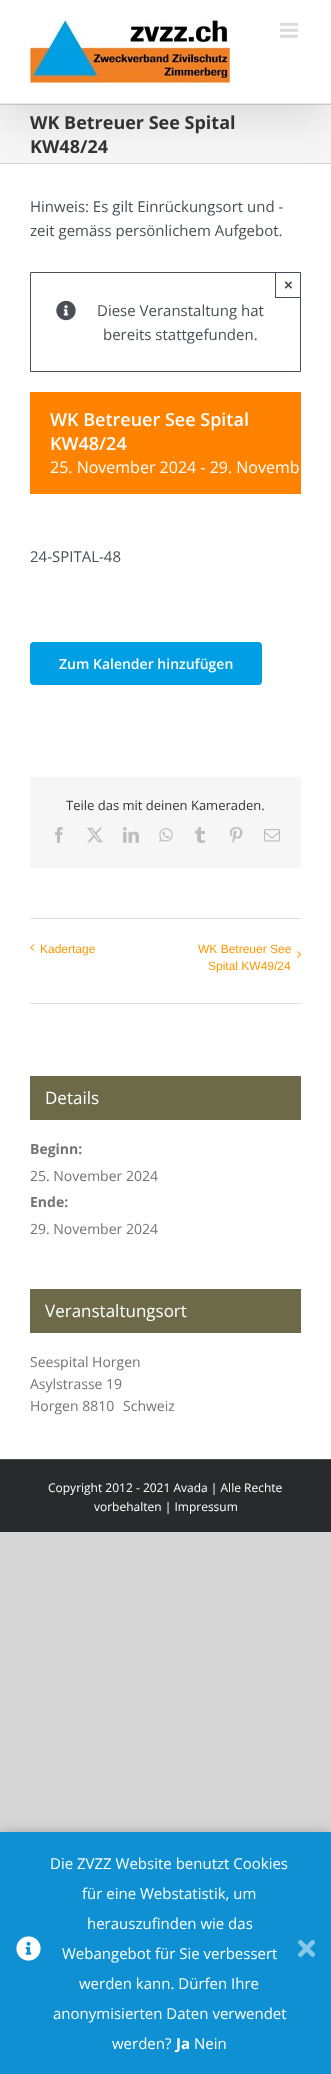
<svg xmlns="http://www.w3.org/2000/svg" width="331" height="2074" viewBox="0 0 331 2074">
  <rect width="100%" height="100%" fill="#d7d6d6"/>
  <path d="M0 105h331v58H0z" fill="#f6f6f6"/>
  <path d="M0 104h331v1H0z" fill="#d2d3d4"/>
  <path d="M0 163h331v1H0z" fill="#d2d3d4"/>
  <path d="M0 164h331v1295H0z" fill="#fff"/>
  <path d="M2 12h327v100H2z" fill="#00000024" filter="blur(25px)"/>
  <path d="M0 0h331v103H0z" fill="#fff"/>
  <path d="M0 103h331v1H0z" fill="#e5e5e5"/>
  <image x="30" y="20" width="200" height="63" href="img/1.png"/>
  <image x="280" y="22" width="18" height="16" href="img/2.png"/>
  <path d="M30.5 272.5h270v99H30.5z" fill="none" stroke="#4a4e57"/>
  <path d="M275 297h26v1H275z" fill="#4a4e57"/>
  <path d="M275 272h1v26H275z" fill="#4a4e57"/>
  <image x="56" y="300" width="20" height="21" href="img/3.png"/>
  <path d="M30 392h271v102H30z" fill="#ff8200"/>
  <rect x="30" y="642" width="232" height="43" rx="4" fill="#009fe3"/>
  <path d="M30 777h271v91H30z" fill="#f6f6f6"/>
  <image x="55" y="827" width="8" height="16" href="img/4.png"/>
  <image x="87" y="827" width="16" height="16" href="img/5.png"/>
  <image x="123" y="827" width="16" height="16" href="img/6.png"/>
  <image x="159" y="828" width="14" height="14" href="img/7.png"/>
  <image x="195" y="827" width="10" height="16" href="img/8.png"/>
  <image x="229" y="827" width="14" height="16" href="img/9.png"/>
  <image x="264" y="829" width="16" height="13" href="img/10.png"/>
  <path d="M30 918h271v1H30z" fill="#e0dede"/>
  <path d="M30 1003h271v1H30z" fill="#e0dede"/>
  <image x="30" y="944" width="5" height="7" href="img/11.png"/>
  <image x="297" y="951" width="4" height="7" href="img/12.png"/>
  <path d="M30 1076h271v44H30z" fill="#6d6a4a"/>
  <path d="M30 1289h271v44H30z" fill="#6d6a4a"/>
  <path d="M0 1460h331v72H0z" fill="#282a2b"/>
  <path d="M0 1459h331v1H0z" fill="#4b4c4d"/>
  <path d="M0 1836h331v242H0z" fill="#00000066" filter="blur(7.5px)"/>
  <path d="M0 1832h331v242H0z" fill="#0e90d2"/>
  <image x="16" y="1936" width="25" height="25" href="img/13.png"/>
  <image x="298" y="1939" width="17" height="18" href="img/14.png"/>
  <g font-family="Open Sans" font-size="18" font-weight="bold" fill="#333">
    <text x="30" y="129">WK Betreuer See Spital</text>
    <text x="30" y="153">KW48/24</text>
  </g>
  <g font-family="Open Sans" font-size="15" fill="#4a4e57">
    <text x="30" y="212">Hinweis: Es gilt Einrückungsort und -</text>
    <text x="30" y="236">zeit gemäss persönlichem Aufgebot.</text>
  </g>
  <text x="284" y="290" font-family="Liberation Sans" font-size="15" font-weight="bold" fill="#4a4e57">×</text>
  <g font-family="Open Sans" font-size="15" fill="#4a4e57">
    <text x="97" y="316">Diese Veranstaltung hat</text>
    <text x="103" y="340">bereits stattgefunden.</text>
  </g>
  <g font-family="Open Sans" font-size="18" font-weight="600" fill="#fff">
    <text x="50" y="426">WK Betreuer See Spital</text>
    <text x="50" y="450">KW48/24</text>
  </g>
  <text x="50" y="473" font-family="Open Sans" font-size="16" fill="#fff">25. November 2024 - 29. Novemb</text>
  <text x="30" y="562" font-family="Open Sans" font-size="15" fill="#4a4e57">24-SPITAL-48</text>
  <text x="59" y="669" font-family="Open Sans" font-size="14" font-weight="600" fill="#fff">Zum Kalender hinzufügen</text>
  <text x="66" y="810" font-family="Open Sans" font-size="13" fill="#333">Teile das mit deinen Kameraden.</text>
  <g font-family="Liberation Sans" font-size="12" fill="#ff9800">
    <text x="40" y="953">Kadertage</text>
    <text x="198" y="953">WK Betreuer See</text>
    <text x="208" y="970">Spital KW49/24</text>
  </g>
  <text x="45" y="1104" font-family="Open Sans" font-size="17" fill="#fff">Details</text>
  <text x="30" y="1154" font-family="Open Sans" font-size="14" font-weight="bold" fill="#747474">Beginn:</text>
  <text x="30" y="1181" font-family="Open Sans" font-size="14" fill="#747474">25. November 2024</text>
  <text x="30" y="1207" font-family="Open Sans" font-size="14" font-weight="bold" fill="#747474">Ende:</text>
  <text x="30" y="1234" font-family="Open Sans" font-size="14" fill="#747474">29. November 2024</text>
  <text x="45" y="1317" font-family="Open Sans" font-size="17" fill="#fff">Veranstaltungsort</text>
  <g font-family="Open Sans" font-size="14" fill="#747474">
    <text x="30" y="1367">Seespital Horgen</text>
    <text x="30" y="1389">Asylstrasse 19</text>
    <text x="30" y="1411">Horgen 8810</text>
    <text x="123" y="1411">Schweiz</text>
  </g>
  <g font-family="Open Sans" font-size="12" fill="#fff">
    <text x="48" y="1492">Copyright 2012 - 2021 Avada | Alle Rechte</text>
    <text x="94" y="1511">vorbehalten | Impressum</text>
  </g>
  <g font-family="Open Sans" font-size="15" fill="#fff">
    <text x="50" y="1869">Die ZVZZ Website benutzt Cookies</text>
    <text x="82" y="1899">für eine Webstatistik, um</text>
    <text x="87" y="1929">herauszufinden wie das</text>
    <text x="62" y="1959">Webangebot für Sie verbessert</text>
    <text x="79" y="1989">werden kann. Dürfen Ihre</text>
    <text x="53" y="2019">anonymisierten Daten verwendet</text>
    <text x="112" y="2049">werden?</text>
  </g>
  <text x="176" y="2049" font-family="Open Sans" font-size="15" font-weight="bold" fill="#fff">Ja</text>
  <text x="194" y="2049" font-family="Open Sans" font-size="15" fill="#fff">Nein</text>
</svg>
